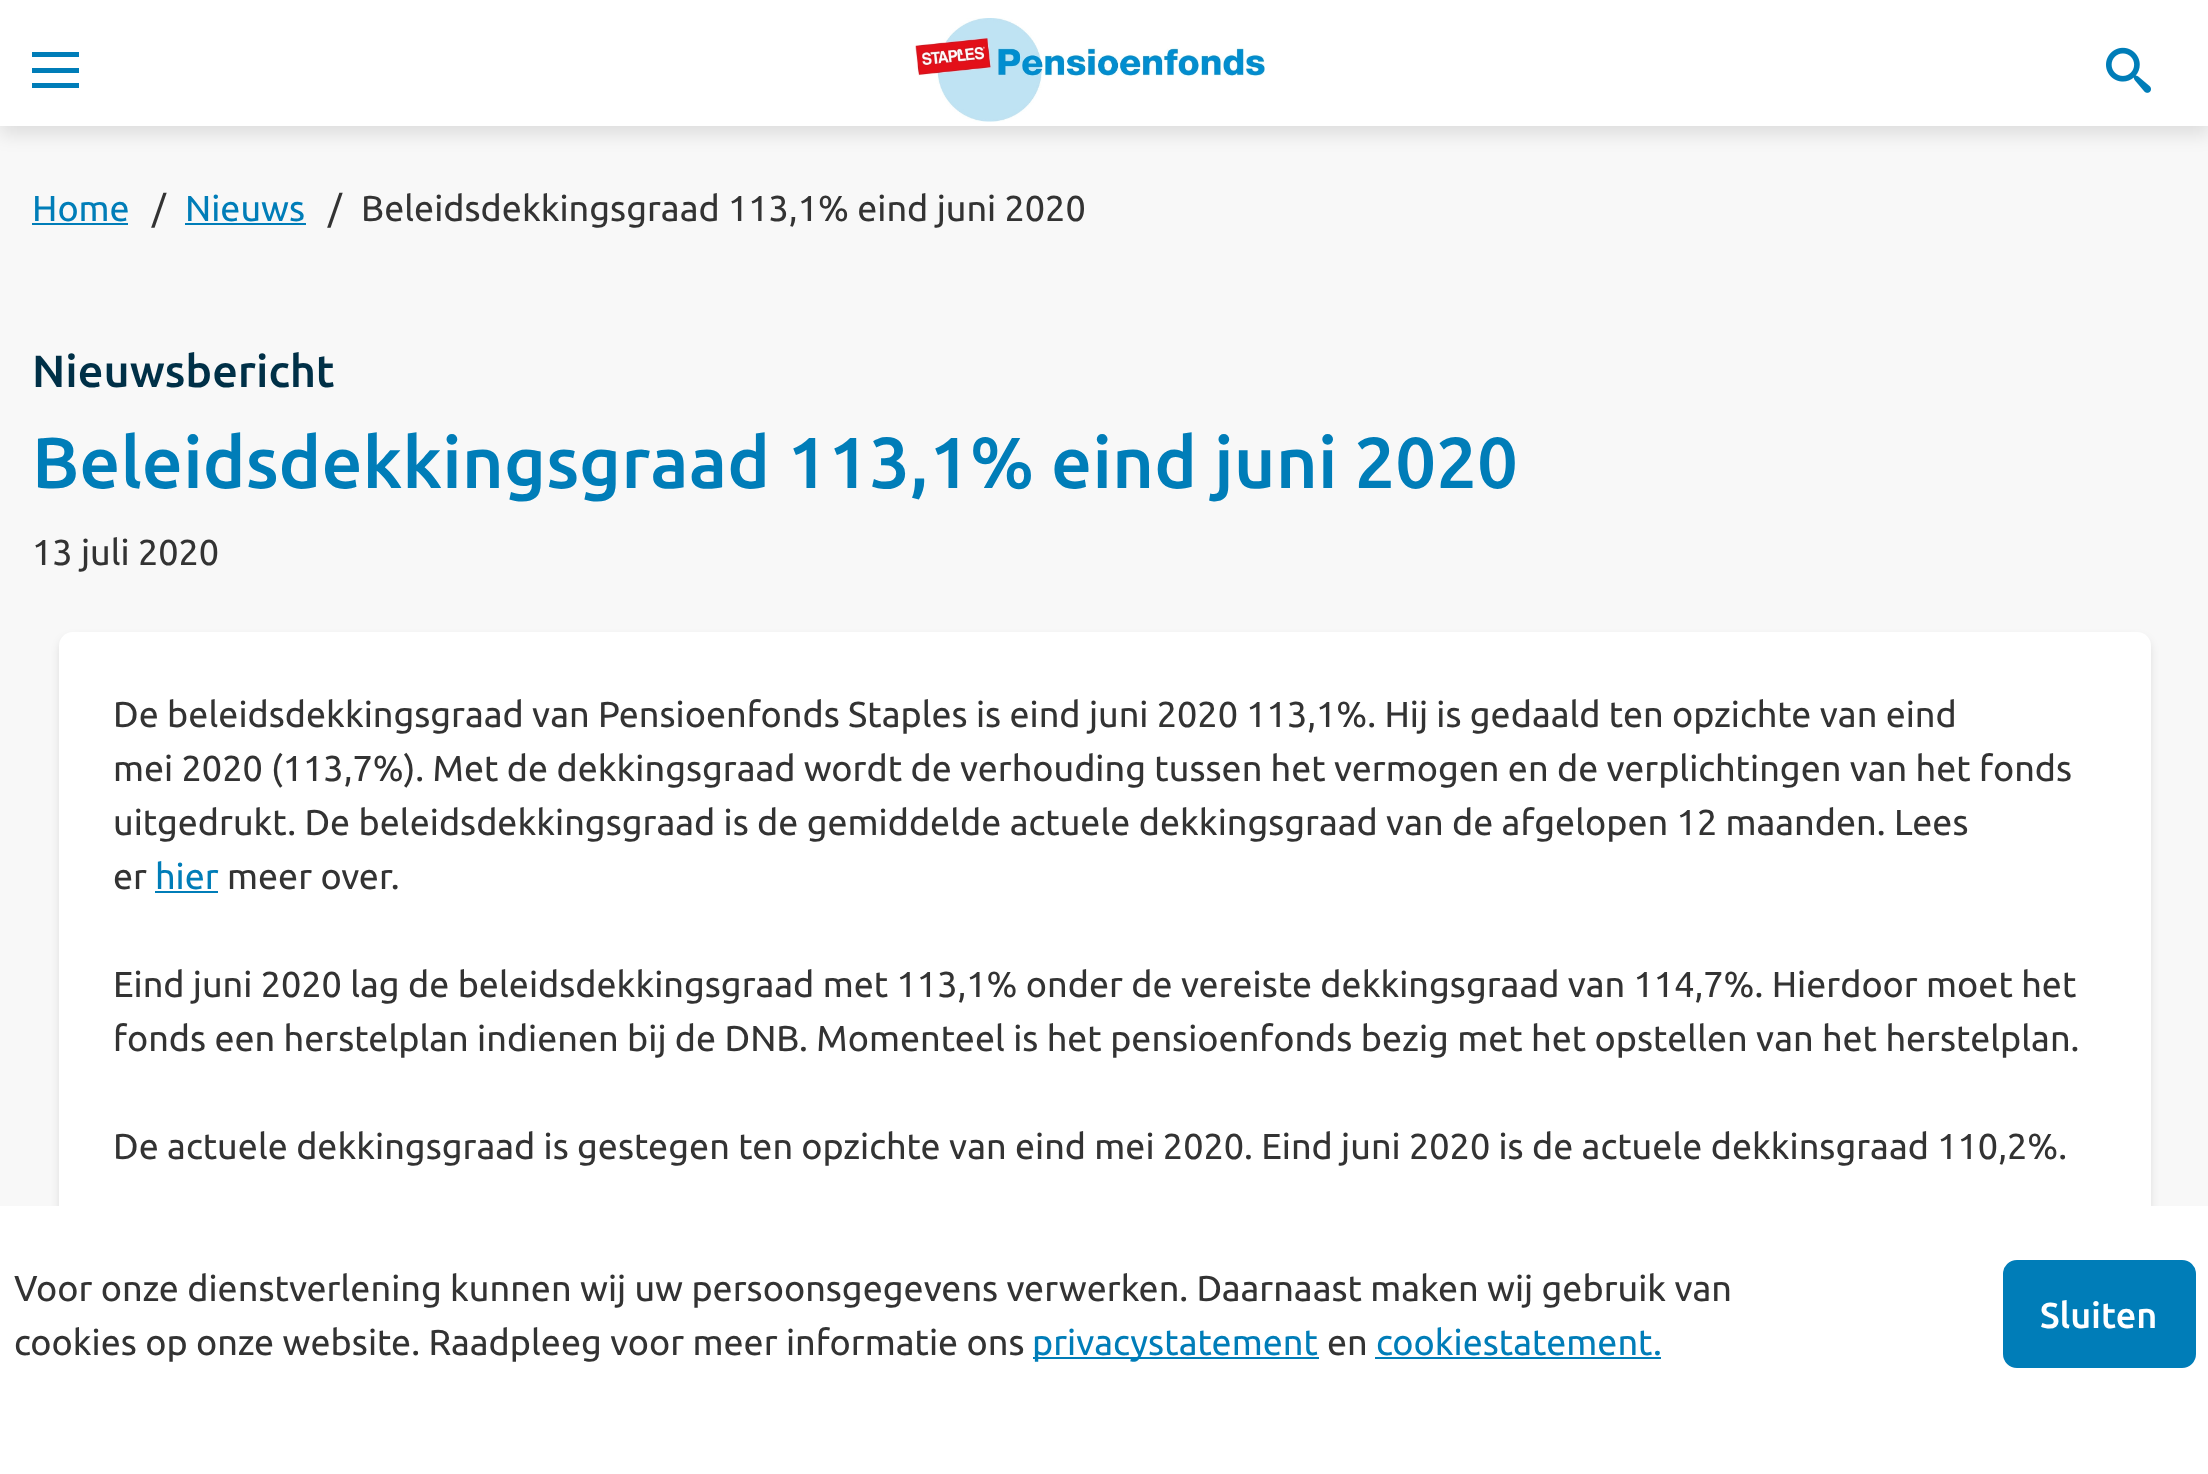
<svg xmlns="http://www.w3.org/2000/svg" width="2208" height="1474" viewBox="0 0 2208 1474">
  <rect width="100%" height="100%" fill="#f8f8f8"/>
  <path d="M0 9h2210v126H0z" fill="#0000001a" filter="blur(9px)"/>
  <path d="M0 0h2208v126H0z" fill="#fff"/>
  <path d="M32 68h47v5H32z" fill="#007db8"/>
  <path d="M32 52h47v5H32z" fill="#007db8"/>
  <path d="M32 83h47v5H32z" fill="#007db8"/>
  <image x="915" y="18" width="350" height="104" href="img/1.png"/>
  <image x="2106" y="47" width="45" height="46" href="img/2.png"/>
  <path d="M32 223h96v2H32z" fill="#007db8"/>
  <path d="M185 223h121v2H185z" fill="#007db8"/>
  <rect x="59" y="637" width="2092" height="702" rx="14" fill="#0000001a" filter="blur(4.5px)"/>
  <rect x="59" y="632" width="2092" height="702" rx="14" fill="#fff"/>
  <path d="M155 891h63v2H155z" fill="#007db8"/>
  <path d="M0 1206h2208v268H0z" fill="#fff"/>
  <path d="M1033 1357h286v2H1033z" fill="#007db8"/>
  <path d="M1375 1357h286v2H1375z" fill="#007db8"/>
  <rect x="2004" y="1261" width="191" height="106" rx="13" fill="#007db8" stroke="#007db8" stroke-width="2"/>
  <text x="32" y="221" font-family="Ubuntu" font-size="36" fill="#007db8">Home</text>
  <text x="152" y="221" font-family="Ubuntu" font-size="36" fill="#333">/</text>
  <text x="185" y="221" font-family="Ubuntu" font-size="36" fill="#007db8">Nieuws</text>
  <g font-family="Ubuntu" font-size="36" fill="#333">
    <text x="328" y="221">/</text>
    <text x="361" y="221">Beleidsdekkingsgraad 113,1% eind juni 2020</text>
  </g>
  <text x="32" y="387" font-family="Ubuntu" font-size="45" font-weight="500" fill="#003047">Nieuwsbericht</text>
  <text x="32" y="488" font-family="Ubuntu" font-size="72" font-weight="500" fill="#007db8">Beleidsdekkingsgraad 113,1% eind juni 2020</text>
  <g font-family="Ubuntu" font-size="36" fill="#333">
    <text x="32" y="565">13 juli 2020</text>
    <text x="113" y="727">De beleidsdekkingsgraad van Pensioenfonds Staples is eind juni 2020 113,1%. Hij is gedaald ten opzichte van eind</text>
    <text x="113" y="781">mei 2020 (113,7%). Met de dekkingsgraad wordt de verhouding tussen het vermogen en de verplichtingen van het fonds</text>
    <text x="113" y="835">uitgedrukt. De beleidsdekkingsgraad is de gemiddelde actuele dekkingsgraad van de afgelopen 12 maanden. Lees</text>
    <text x="113" y="889">er</text>
  </g>
  <text x="155" y="889" font-family="Ubuntu" font-size="36" fill="#007db8">hier</text>
  <g font-family="Ubuntu" font-size="36" fill="#333">
    <text x="227" y="889">meer over.</text>
    <text x="113" y="997">Eind juni 2020 lag de beleidsdekkingsgraad met 113,1% onder de vereiste dekkingsgraad van 114,7%. Hierdoor moet het</text>
    <text x="113" y="1051">fonds een herstelplan indienen bij de DNB. Momenteel is het pensioenfonds bezig met het opstellen van het herstelplan.</text>
    <text x="113" y="1159">De actuele dekkingsgraad is gestegen ten opzichte van eind mei 2020. Eind juni 2020 is de actuele dekkinsgraad 110,2%.</text>
    <text x="14" y="1301">Voor onze dienstverlening kunnen wij uw persoonsgegevens verwerken. Daarnaast maken wij gebruik van</text>
    <text x="14" y="1355">cookies op onze website. Raadpleeg voor meer informatie ons</text>
  </g>
  <text x="1032" y="1355" font-family="Ubuntu" font-size="36" fill="#007db8">privacystatement</text>
  <text x="1327" y="1355" font-family="Ubuntu" font-size="36" fill="#333">en</text>
  <text x="1376" y="1355" font-family="Ubuntu" font-size="36" fill="#007db8">cookiestatement.</text>
  <text x="2040" y="1328" font-family="Ubuntu" font-size="36" font-weight="500" fill="#fff">Sluiten</text>
</svg>
